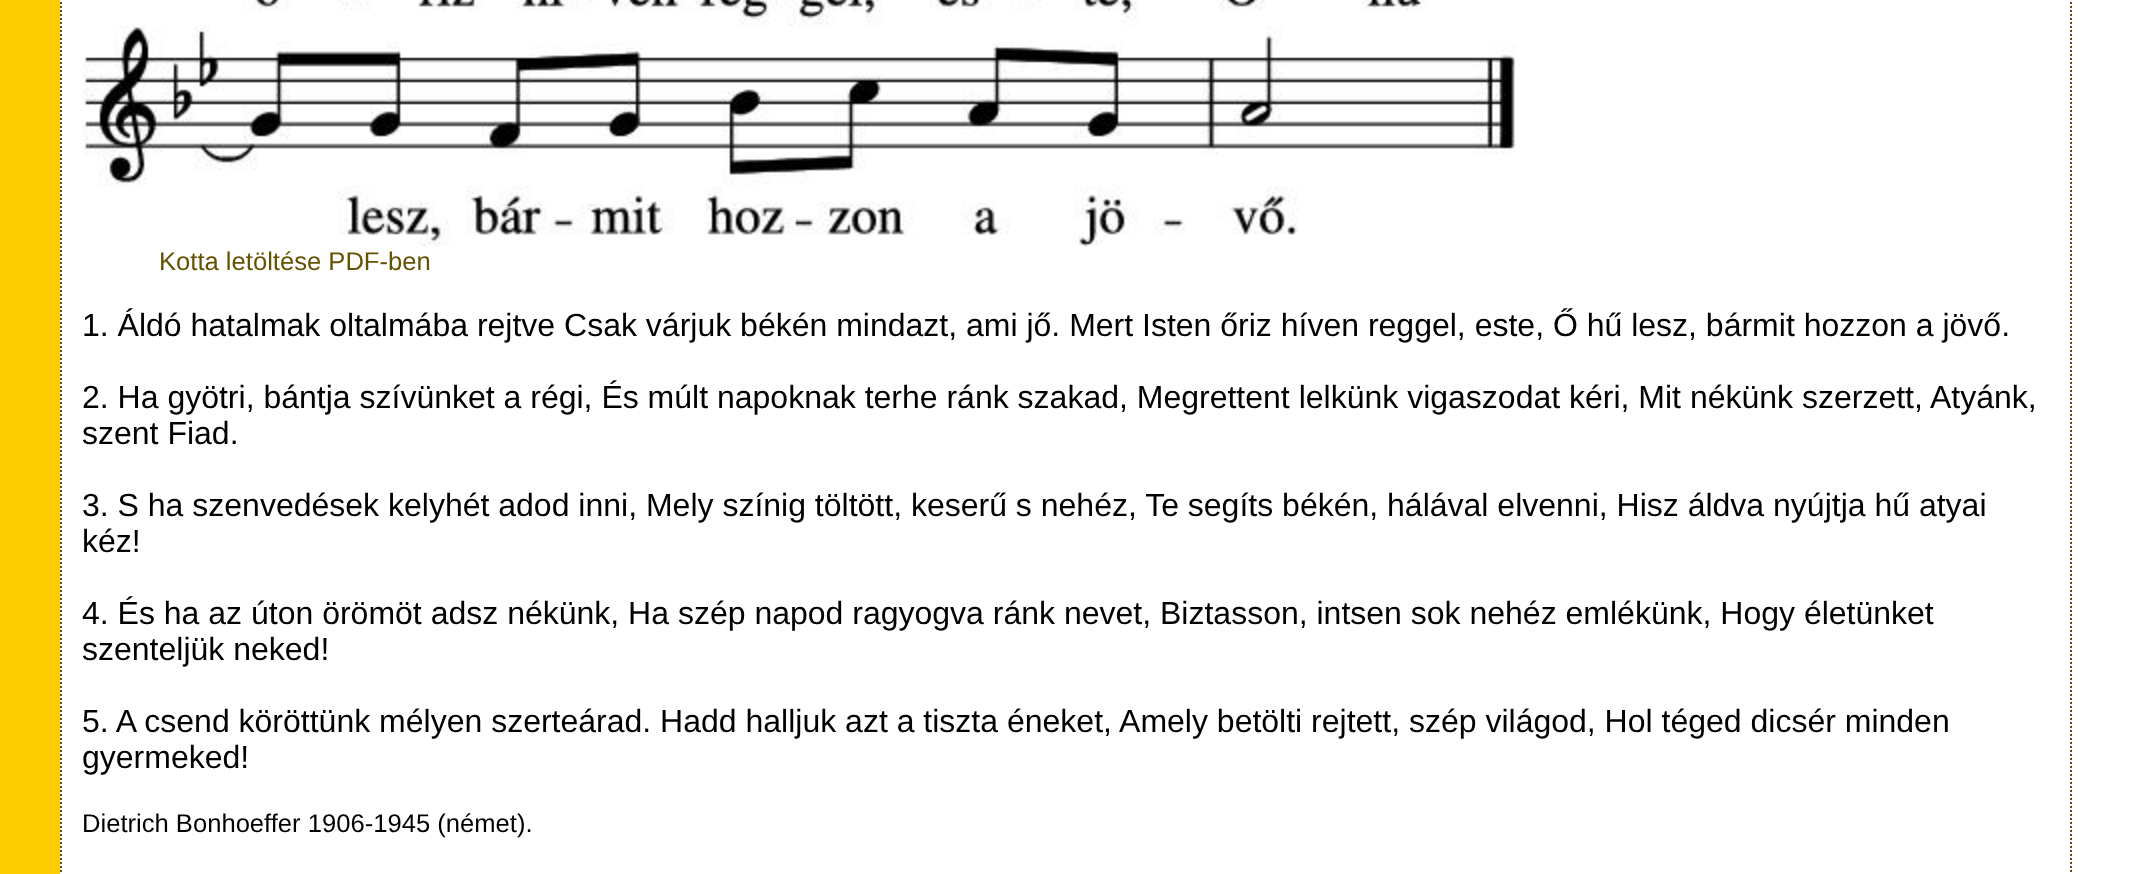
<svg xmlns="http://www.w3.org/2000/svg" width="2132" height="874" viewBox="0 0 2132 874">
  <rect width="100%" height="100%" fill="#fff"/>
  <image x="0" y="0" width="60" height="874" href="img/1.png"/>
  <path d="M2071-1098V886" fill="none" stroke="#665100" stroke-width="2" stroke-dasharray="2 2"/>
  <path d="M61-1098V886" fill="none" stroke="#665100" stroke-width="2" stroke-dasharray="2 2"/>
  <image x="82" y="0" width="1434" height="246" href="img/2.png"/>
  <text x="159" y="270" font-family="Liberation Sans" font-size="25.6" fill="#665100">Kotta letöltése PDF-ben</text>
  <g font-family="Liberation Sans" font-size="32" fill="#000">
    <text x="82" y="336">1. Áldó hatalmak oltalmába rejtve Csak várjuk békén mindazt, ami jő. Mert Isten őriz híven reggel, este, Ő hű lesz, bármit hozzon a jövő.</text>
    <text x="82" y="408">2. Ha gyötri, bántja szívünket a régi, És múlt napoknak terhe ránk szakad, Megrettent lelkünk vigaszodat kéri, Mit nékünk szerzett, Atyánk,</text>
    <text x="82" y="444">szent Fiad.</text>
    <text x="82" y="516">3. S ha szenvedések kelyhét adod inni, Mely színig töltött, keserű s nehéz, Te segíts békén, hálával elvenni, Hisz áldva nyújtja hű atyai</text>
    <text x="82" y="552">kéz!</text>
    <text x="82" y="624">4. És ha az úton örömöt adsz nékünk, Ha szép napod ragyogva ránk nevet, Biztasson, intsen sok nehéz emlékünk, Hogy életünket</text>
    <text x="82" y="660">szenteljük neked!</text>
    <text x="82" y="732">5. A csend köröttünk mélyen szerteárad. Hadd halljuk azt a tiszta éneket, Amely betölti rejtett, szép világod, Hol téged dicsér minden</text>
    <text x="82" y="768">gyermeked!</text>
  </g>
  <text x="82" y="832" font-family="Liberation Sans" font-size="25.6" fill="#000">Dietrich Bonhoeffer 1906-1945 (német).</text>
</svg>
